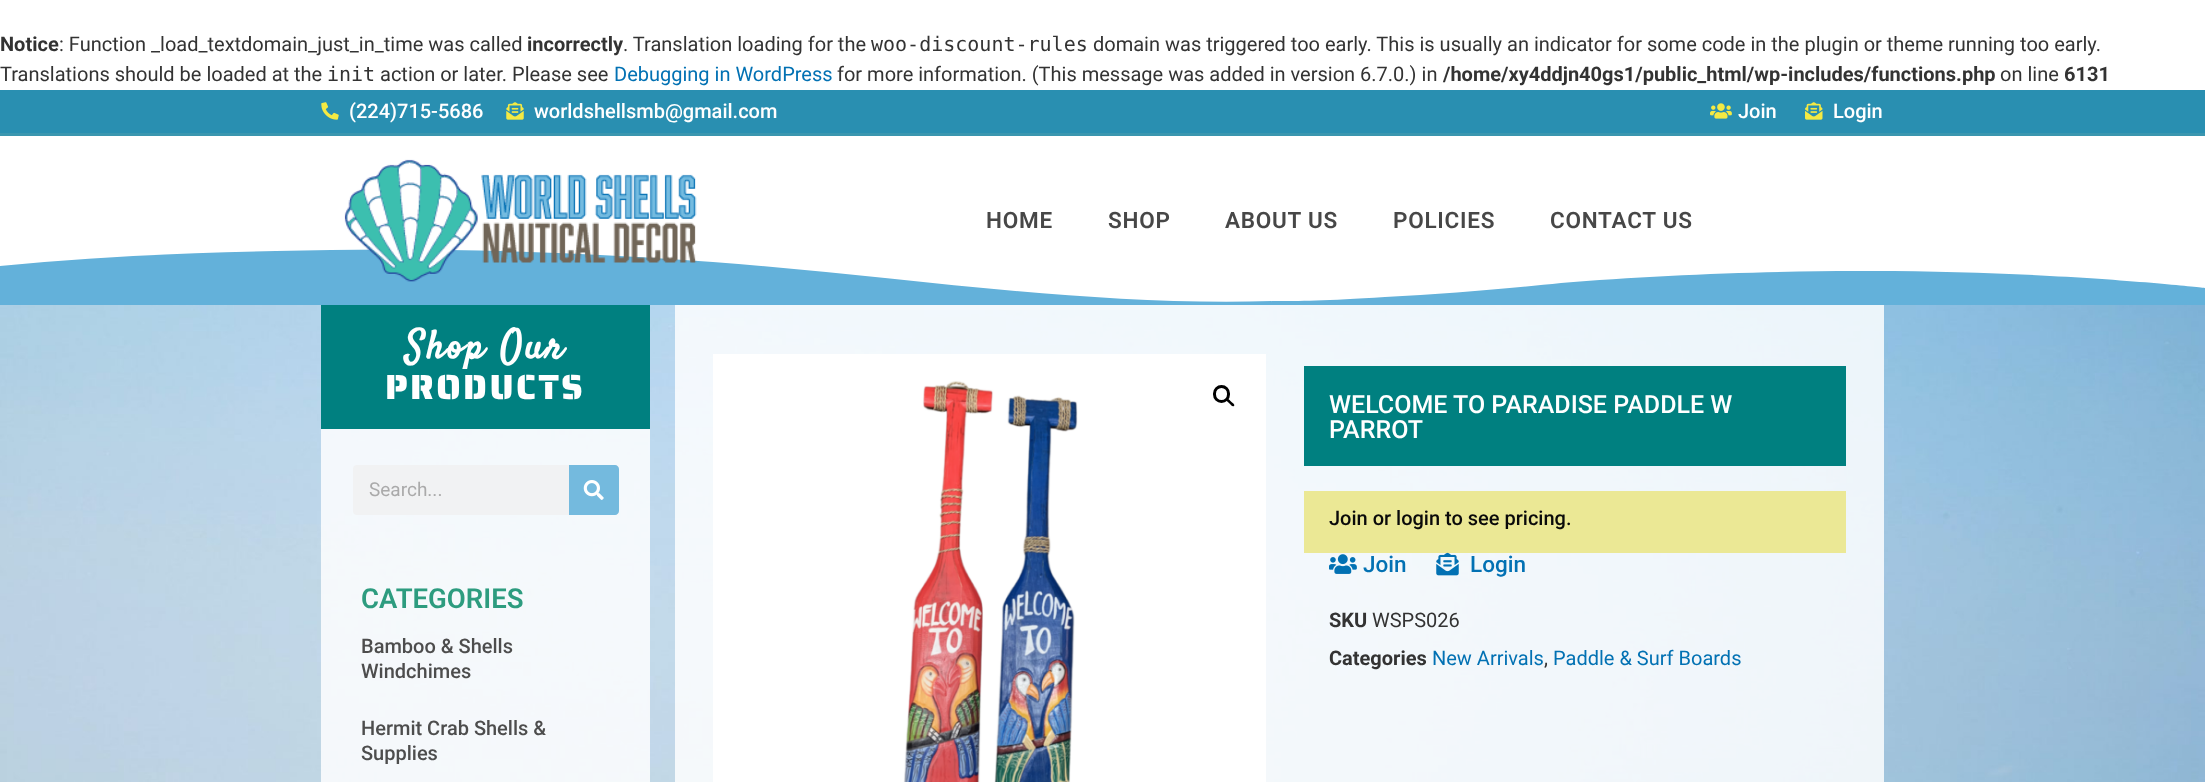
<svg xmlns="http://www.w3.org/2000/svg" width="2205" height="782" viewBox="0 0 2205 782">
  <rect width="100%" height="100%" fill="#fff"/>
  <path d="M0 90h2205v43H0z" fill="#298fb1"/>
  <path d="M0 133h2205v3H0z" fill="#3a96af"/>
  <image x="321" y="102" width="18" height="18" href="img/1.png"/>
  <image x="506" y="102" width="18" height="18" href="img/2.png"/>
  <image x="1710" y="103" width="22" height="16" href="img/3.png"/>
  <image x="1805" y="102" width="18" height="18" href="img/4.png"/>
  <path d="M1275 301C1087 307 900 276 713 262C567 251 421 247 276 251C183 253 91 257-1 266V305H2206V288C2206 288 2047 270 1856 271C1770 271 1652 275 1561 283C1514 288 1445 294 1385 297C1325 301 1298 301 1275 301Z" fill="#63b1da"/>
  <image x="344" y="159" width="353" height="123" href="img/5.png"/>
  <image x="0" y="305" width="2205" height="477" href="img/6.png"/>
  <path d="M321 305h329v64H321z" fill="#008080"/>
  <path d="M321 429h329v353H321z" fill="#ffffffd4"/>
  <rect x="353" y="465" width="266" height="50" rx="4" fill="#f1f2f3"/>
  <path d="M569 465H615C617 465 619 467 619 469V511C619 513 617 515 615 515H569Z" fill="#74bade"/>
  <image x="583" y="480" width="21" height="20" href="img/7.png"/>
  <path d="M675 305h1209v477H675z" fill="#ffffffd4"/>
  <image x="713" y="354" width="553" height="428" href="img/8.png"/>
  <rect x="1214.5" y="386.5" width="14" height="15" rx="7" fill="none" stroke="#000" stroke-width="3"/>
  <path d="M1227 399C1228 397.5 1230.5 401 1231 401.5C1232 402.5 1235.5 404.5 1234 406C1232.5 407.5 1230 404 1229.5 403.5C1228.5 402.5 1225.5 400.5 1227 399Z" fill="#000"/>
  <path d="M1304 366h542v100H1304z" fill="#008080"/>
  <path d="M1304 491h542v62H1304z" fill="#ebe895"/>
  <image x="1329" y="554" width="28" height="20" href="img/9.png"/>
  <image x="1436" y="552" width="23" height="24" href="img/10.png"/>
  <text x="0" y="51" font-family="Roboto" font-size="20" font-weight="bold" fill="#333">Notice</text>
  <text x="59" y="51" font-family="Roboto" font-size="20" fill="#333">: Function _load_textdomain_just_in_time was called</text>
  <text x="527" y="51" font-family="Roboto" font-size="20" font-weight="bold" fill="#333">incorrectly</text>
  <text x="623" y="51" font-family="Roboto" font-size="20" fill="#333">. Translation loading for the</text>
  <text x="871" y="51" font-family="DejaVu Sans Mono" font-size="20" fill="#333">woo-discount-rules</text>
  <g font-family="Roboto" font-size="20" fill="#333">
    <text x="1093" y="51">domain was triggered too early. This is usually an indicator for some code in the plugin or theme running too early.</text>
    <text x="0" y="81">Translations should be loaded at the</text>
  </g>
  <text x="327" y="81" font-family="DejaVu Sans Mono" font-size="20" fill="#333">init</text>
  <text x="380" y="81" font-family="Roboto" font-size="20" fill="#333">action or later. Please see</text>
  <text x="614" y="81" font-family="Roboto" font-size="20" fill="#0271b3">Debugging in WordPress</text>
  <text x="837" y="81" font-family="Roboto" font-size="20" fill="#333">for more information. (This message was added in version 6.7.0.) in</text>
  <text x="1443" y="81" font-family="Roboto" font-size="20" font-weight="bold" fill="#333">/home/xy4ddjn40gs1/public_html/wp-includes/functions.php</text>
  <text x="2000" y="81" font-family="Roboto" font-size="20" fill="#333">on line</text>
  <text x="2064" y="81" font-family="Roboto" font-size="20" font-weight="bold" fill="#333">6131</text>
  <g font-family="Roboto" font-size="20" font-weight="500" fill="#fff">
    <text x="349" y="118">(224)715-5686</text>
    <text x="534" y="118">worldshellsmb@gmail.com</text>
    <text x="1738" y="118">Join</text>
    <text x="1833" y="118">Login</text>
  </g>
  <g font-family="Roboto" font-size="22.5" font-weight="600" letter-spacing="0.75" fill="#474747">
    <text x="986" y="228">HOME</text>
    <text x="1108" y="228">SHOP</text>
    <text x="1225" y="228">ABOUT US</text>
    <text x="1393" y="228">POLICIES</text>
    <text x="1550" y="228">CONTACT US</text>
  </g>
  <text x="405" y="358" font-family="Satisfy" font-size="40" font-weight="bold" letter-spacing="2.5" fill="#fff">Shop Our</text>
  <path d="M321 369h329v60H321z" fill="#008080"/>
  <text x="385" y="399" font-family="Saira Stencil One" font-size="35" letter-spacing="2.5" fill="#fff">PRODUCTS</text>
  <text x="369" y="496" font-family="Roboto" font-size="19" fill="#aaa">Search...</text>
  <text x="361" y="608" font-family="Roboto" font-size="27.5" font-weight="600" fill="#2d9c7f">CATEGORIES</text>
  <g font-family="Roboto" font-size="20" font-weight="500" fill="#4d4d4d">
    <text x="361" y="653">Bamboo &amp; Shells</text>
    <text x="361" y="678">Windchimes</text>
    <text x="361" y="735">Hermit Crab Shells &amp;</text>
    <text x="361" y="760">Supplies</text>
  </g>
  <g font-family="Roboto" font-size="25" font-weight="500" fill="#fff">
    <text x="1329" y="413">WELCOME TO PARADISE PADDLE W</text>
    <text x="1329" y="438">PARROT</text>
  </g>
  <text x="1329" y="525" font-family="Roboto" font-size="20" font-weight="500" fill="#0a0a0a">Join or login to see pricing.</text>
  <g font-family="Roboto" font-size="22.5" font-weight="500" fill="#0271b3">
    <text x="1363" y="572">Join</text>
    <text x="1470" y="572">Login</text>
  </g>
  <text x="1329" y="627" font-family="Roboto" font-size="20" font-weight="bold" fill="#333">SKU</text>
  <text x="1372" y="627" font-family="Roboto" font-size="20" fill="#333">WSPS026</text>
  <text x="1329" y="665" font-family="Roboto" font-size="20" font-weight="bold" fill="#333">Categories</text>
  <text x="1432" y="665" font-family="Roboto" font-size="20" fill="#0271b3">New Arrivals</text>
  <text x="1544" y="665" font-family="Roboto" font-size="20" fill="#333">,</text>
  <text x="1553" y="665" font-family="Roboto" font-size="20" fill="#0271b3">Paddle &amp; Surf Boards</text>
</svg>
